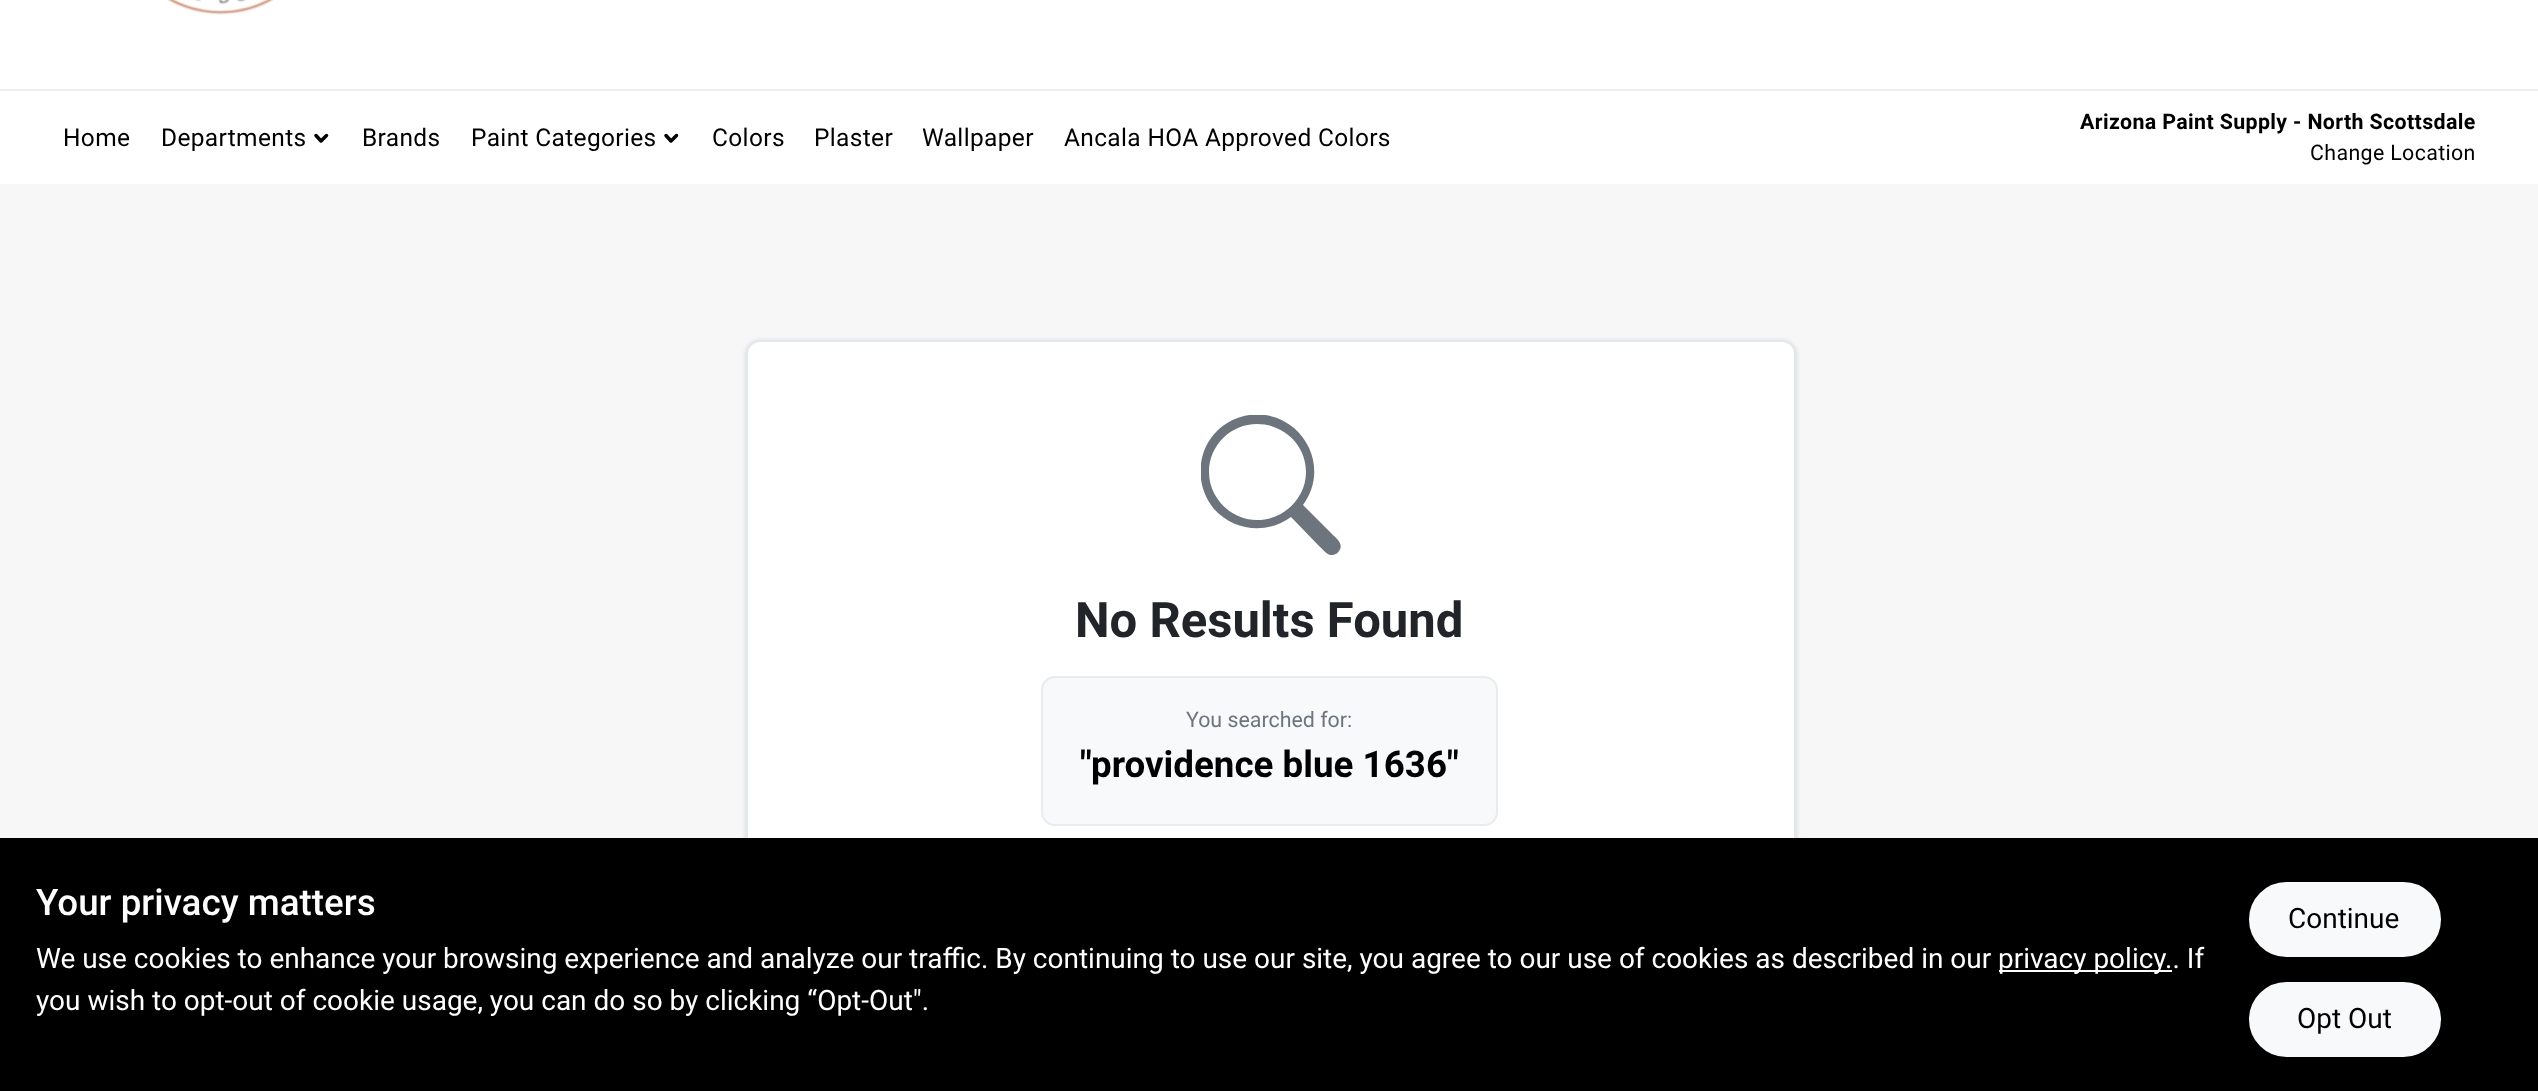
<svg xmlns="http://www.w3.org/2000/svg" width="2538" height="1091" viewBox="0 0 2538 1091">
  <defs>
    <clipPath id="clip1"><path d="M1201 415h140v140H1201z"/></clipPath>
  </defs>
  <rect width="100%" height="100%" fill="#f7f7f7"/>
  <path d="M0 0h2538v89H0z" fill="#fff"/>
  <image x="167" y="0" width="107" height="15" href="img/1.png"/>
  <path d="M0 91h2538v93H0z" fill="#fff"/>
  <path d="M0 89h2538v2H0z" fill="#ededed"/>
  <path d="M326.5 135.5L321 141L316 135.5" fill="none" stroke="#000" stroke-width="3.5" stroke-linecap="round" stroke-linejoin="round"/>
  <path d="M676.5 135.5L671 141L666 135.5" fill="none" stroke="#000" stroke-width="3.5" stroke-linecap="round" stroke-linejoin="round"/>
  <rect x="746" y="341" width="1050" height="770" rx="14" fill="#0000000f" filter="blur(2px)"/>
  <rect x="746" y="341" width="1050" height="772" rx="14" fill="#0000001a" filter="blur(2.5px)"/>
  <rect x="747" y="341" width="1048" height="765" rx="13" fill="#fff" stroke="#e2e8f0" stroke-width="2"/>
  <g clip-path="url(#clip1)">
    <path d="M1303 505C1321 481 1317 448 1294 428C1272 409 1238 410 1217 431C1196 452 1195 486 1214 509C1234 531 1267 535 1291 517L1320 547C1324 550 1327 556 1333 555C1336 554 1338 553 1339 551C1344 544 1337 539 1332 534ZM1306 472C1306 498 1284 520 1257 520C1231 520 1209 498 1209 472C1209 445 1231 424 1257 424C1284 424 1306 445 1306 472" fill="#6c757d"/>
  </g>
  <rect x="1042" y="677" width="455" height="148" rx="13" fill="#f8f9fa" stroke="#e9ecef" stroke-width="2"/>
  <path d="M0 838h2538v253H0z" fill="#000"/>
  <path d="M1999 970h173v2H1999z" fill="#fff"/>
  <rect x="2250" y="883" width="190" height="73" rx="36.5" fill="#f8f9fa" stroke="#f8f9fa" stroke-width="2"/>
  <rect x="2250" y="983" width="190" height="73" rx="36.5" fill="#f8f9fa" stroke="#f8f9fa" stroke-width="2"/>
  <g font-family="Roboto" font-size="24.5" letter-spacing="0.35" fill="#000">
    <text x="63" y="146">Home</text>
    <text x="161" y="146">Departments</text>
    <text x="362" y="146">Brands</text>
    <text x="471" y="146">Paint Categories</text>
    <text x="712" y="146">Colors</text>
    <text x="814" y="146">Plaster</text>
    <text x="922" y="146">Wallpaper</text>
    <text x="1064" y="146">Ancala HOA Approved Colors</text>
  </g>
  <text x="2080" y="129" font-family="Roboto" font-size="21.4" font-weight="bold" letter-spacing="0.35" fill="#000">Arizona Paint Supply - North Scottsdale</text>
  <text x="2310" y="160" font-family="Roboto" font-size="21.4" letter-spacing="0.35" fill="#000">Change Location</text>
  <text x="1075" y="637" font-family="Roboto" font-size="49" font-weight="bold" fill="#212529">No Results Found</text>
  <text x="1186" y="727" font-family="Roboto" font-size="21.4" fill="#6c757d">You searched for:</text>
  <g font-family="Roboto" font-size="36.75" font-weight="bold" fill="#000">
    <text x="1080" y="777">"</text>
    <text x="1091" y="777">providence blue 1636"</text>
  </g>
  <text x="36" y="915" font-family="Roboto" font-size="36.75" font-weight="500" fill="#fff">Your privacy matters</text>
  <g font-family="Roboto" font-size="28" fill="#fff">
    <text x="36" y="968">We use cookies to enhance your browsing experience and analyze our traffic. By continuing to use our site, you agree to our use of cookies as described in our</text>
    <text x="1998" y="968">privacy policy.. If</text>
    <text x="36" y="1010">you wish to opt-out of cookie usage, you can do so by clicking “Opt-Out".</text>
  </g>
  <g font-family="Roboto" font-size="28" fill="#000">
    <text x="2288" y="928">Continue</text>
    <text x="2297" y="1028">Opt Out</text>
  </g>
</svg>
